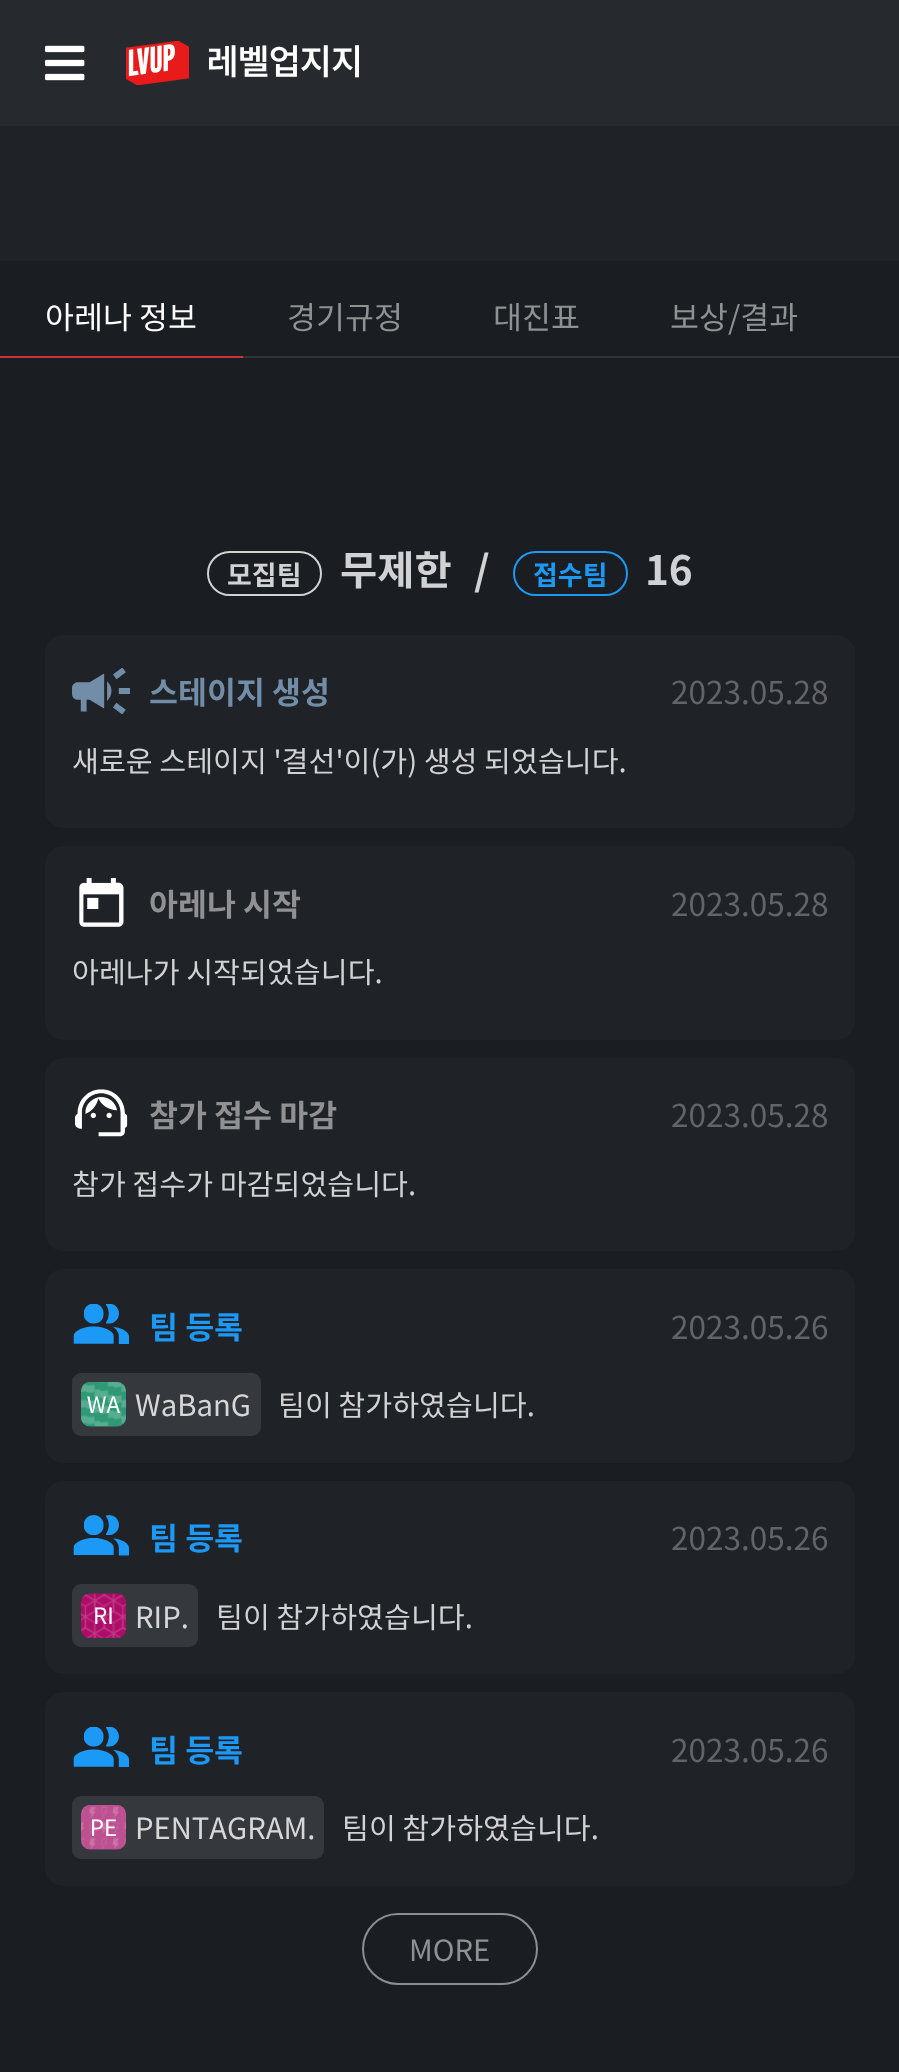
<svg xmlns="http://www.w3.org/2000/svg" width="899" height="2072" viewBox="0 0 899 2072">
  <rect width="100%" height="100%" fill="#1a1d21"/>
  <path d="M0 0h899v126H0z" fill="#26292d"/>
  <image x="45" y="45" width="40" height="36" href="img/1.png"/>
  <image x="126" y="41" width="63" height="44" href="img/2.png"/>
  <path d="M0 126h899v135H0z" fill="#1f2226"/>
  <path d="M0 356h243v2H0z" fill="#cc3535"/>
  <path d="M243 356h656v2H243z" fill="#303337"/>
  <rect x="208" y="552" width="113" height="43" rx="21.5" fill="none" stroke="#d1d2d3" stroke-width="2"/>
  <rect x="514" y="552" width="113" height="43" rx="21.5" fill="none" stroke="#1c98f5" stroke-width="2"/>
  <rect x="45" y="635" width="810" height="193" rx="18" fill="#1f2226"/>
  <image x="72" y="668" width="58" height="46" href="img/3.png"/>
  <rect x="45" y="846" width="810" height="194" rx="18" fill="#1f2226"/>
  <image x="79" y="878" width="45" height="49" href="img/4.png"/>
  <rect x="45" y="1058" width="810" height="193" rx="18" fill="#1f2226"/>
  <image x="75" y="1089" width="53" height="48" href="img/5.png"/>
  <rect x="45" y="1269" width="810" height="194" rx="18" fill="#1f2226"/>
  <image x="73" y="1304" width="57" height="40" href="img/6.png"/>
  <rect x="72" y="1373" width="189" height="63" rx="9" fill="#35383c"/>
  <image x="81" y="1382" width="45" height="45" href="img/7.png"/>
  <rect x="45" y="1481" width="810" height="193" rx="18" fill="#1f2226"/>
  <image x="73" y="1515" width="57" height="41" href="img/8.png"/>
  <rect x="72" y="1584" width="126" height="63" rx="9" fill="#35383c"/>
  <image x="81" y="1593" width="45" height="45" href="img/9.png"/>
  <rect x="45" y="1692" width="810" height="194" rx="18" fill="#1f2226"/>
  <image x="73" y="1727" width="57" height="40" href="img/10.png"/>
  <rect x="72" y="1796" width="252" height="63" rx="9" fill="#35383c"/>
  <image x="81" y="1805" width="45" height="45" href="img/11.png"/>
  <rect x="363" y="1914" width="174" height="70" rx="35" fill="none" stroke="#8d8e90" stroke-width="2"/>
  <text x="207" y="74" font-family="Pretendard" font-size="36" font-weight="600" fill="#fff">레벨업지지</text>
  <text x="45" y="329" font-family="Noto Sans KR" font-size="31.5" fill="#fff">아레나 정보</text>
  <g font-family="Noto Sans KR" font-size="31.5" fill="#8f9193">
    <text x="287" y="329">경기규정</text>
    <text x="493" y="329">대진표</text>
    <text x="670" y="329">보상/결과</text>
  </g>
  <text x="227" y="585" font-family="Noto Sans KR" font-size="27" font-weight="bold" fill="#d1d2d3">모집팀</text>
  <g font-family="Noto Sans KR" font-size="40.5" font-weight="bold" fill="#d1d2d3">
    <text x="340" y="585">무제한</text>
    <text x="474" y="585">/</text>
  </g>
  <text x="533" y="585" font-family="Noto Sans KR" font-size="27" font-weight="bold" fill="#1c98f5">접수팀</text>
  <text x="645" y="585" font-family="Noto Sans KR" font-size="40.5" font-weight="bold" fill="#d1d2d3">16</text>
  <text x="149" y="704" font-family="Noto Sans KR" font-size="31.5" font-weight="bold" fill="#718da8">스테이지 생성</text>
  <text x="671" y="704" font-family="Noto Sans KR" font-size="31.5" fill="#626467">2023.05.28</text>
  <text x="72" y="772" font-family="Noto Sans KR" font-size="29.25" fill="#d1d2d3">새로운 스테이지 '결선'이(가) 생성 되었습니다.</text>
  <text x="149" y="916" font-family="Noto Sans KR" font-size="31.5" font-weight="bold" fill="#8f9193">아레나 시작</text>
  <text x="671" y="916" font-family="Noto Sans KR" font-size="31.5" fill="#626467">2023.05.28</text>
  <text x="72" y="983" font-family="Noto Sans KR" font-size="29.25" fill="#d1d2d3">아레나가 시작되었습니다.</text>
  <text x="149" y="1127" font-family="Noto Sans KR" font-size="31.5" font-weight="bold" fill="#8f9193">참가 접수 마감</text>
  <text x="671" y="1127" font-family="Noto Sans KR" font-size="31.5" fill="#626467">2023.05.28</text>
  <text x="72" y="1195" font-family="Noto Sans KR" font-size="29.25" fill="#d1d2d3">참가 접수가 마감되었습니다.</text>
  <text x="149" y="1339" font-family="Noto Sans KR" font-size="31.5" font-weight="bold" fill="#1c98f5">팀 등록</text>
  <text x="671" y="1339" font-family="Noto Sans KR" font-size="31.5" fill="#626467">2023.05.26</text>
  <text x="135" y="1416" font-family="Noto Sans KR" font-size="29.25" fill="#d7d7d8">WaBanG</text>
  <text x="278" y="1416" font-family="Noto Sans KR" font-size="29.25" fill="#d1d2d3">팀이 참가하였습니다.</text>
  <text x="149" y="1550" font-family="Noto Sans KR" font-size="31.5" font-weight="bold" fill="#1c98f5">팀 등록</text>
  <text x="671" y="1550" font-family="Noto Sans KR" font-size="31.5" fill="#626467">2023.05.26</text>
  <text x="135" y="1628" font-family="Noto Sans KR" font-size="29.25" fill="#d7d7d8">RIP.</text>
  <text x="216" y="1628" font-family="Noto Sans KR" font-size="29.25" fill="#d1d2d3">팀이 참가하였습니다.</text>
  <text x="149" y="1762" font-family="Noto Sans KR" font-size="31.5" font-weight="bold" fill="#1c98f5">팀 등록</text>
  <text x="671" y="1762" font-family="Noto Sans KR" font-size="31.5" fill="#626467">2023.05.26</text>
  <text x="135" y="1839" font-family="Noto Sans KR" font-size="29.25" fill="#d7d7d8">PENTAGRAM.</text>
  <text x="342" y="1839" font-family="Noto Sans KR" font-size="29.25" fill="#d1d2d3">팀이 참가하였습니다.</text>
  <text x="409" y="1961" font-family="Noto Sans KR" font-size="29.25" fill="#8f9193">MORE</text>
</svg>
